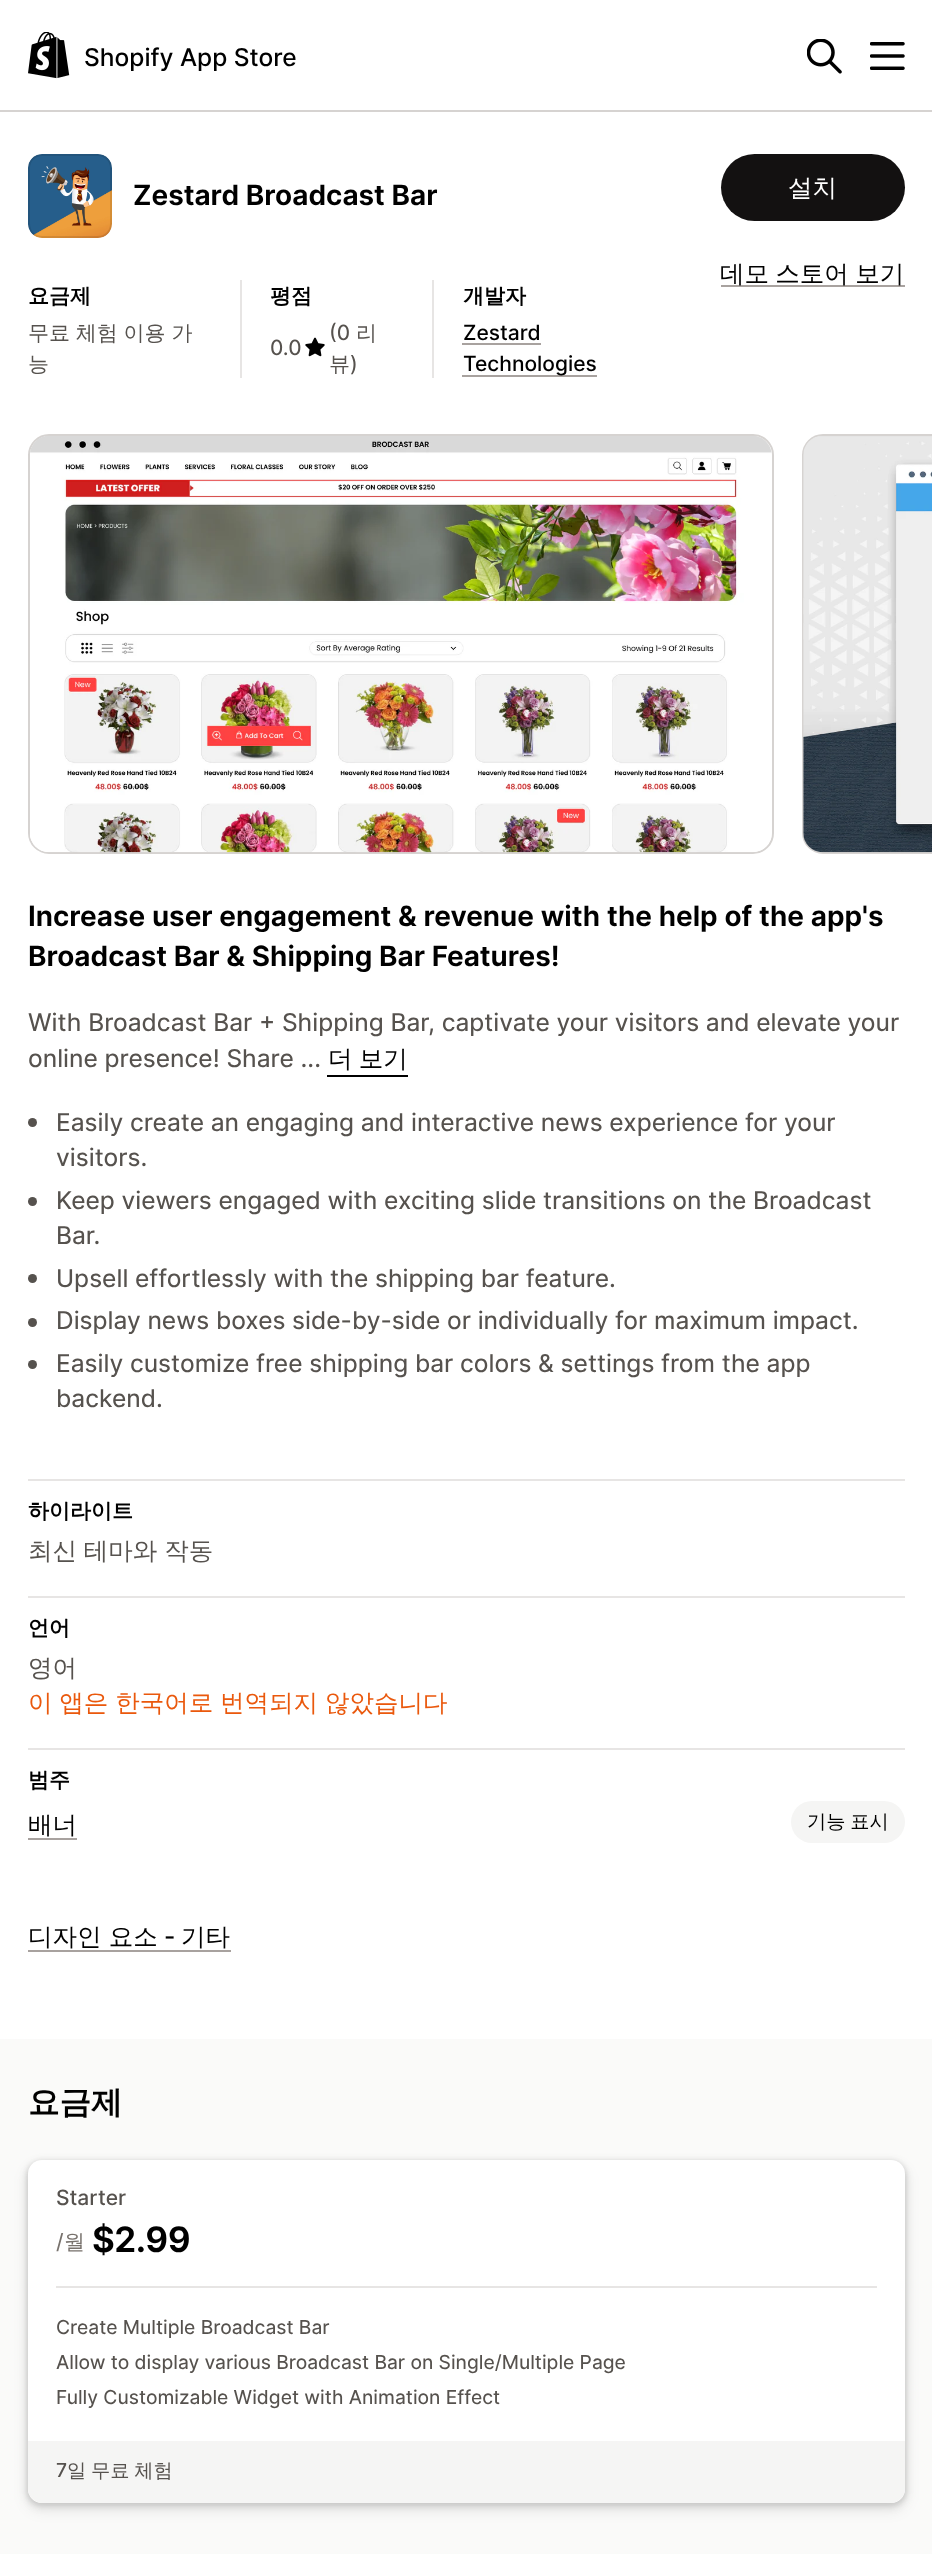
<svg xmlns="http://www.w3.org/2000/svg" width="932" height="2554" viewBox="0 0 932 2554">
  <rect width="100%" height="100%" fill="#fff"/>
  <path d="M0 110h932v2H0z" fill="#d6d3d1"/>
  <image x="28" y="32" width="42" height="47" href="img/1.png"/>
  <image x="807" y="39" width="35" height="35" href="img/2.png"/>
  <image x="870" y="42" width="35" height="28" href="img/3.png"/>
  <image x="28" y="154" width="84" height="84" href="img/4.png"/>
  <rect x="29" y="155" width="82" height="82" rx="13" fill="none" stroke="#0000001a" stroke-width="2"/>
  <path d="M240 280h2v98H240z" fill="#e7e5e4"/>
  <path d="M432 280h2v98H432z" fill="#e7e5e4"/>
  <image x="305" y="337" width="20" height="20" href="img/5.png"/>
  <path d="M462 343h79v2H462z" fill="#a8a29f"/>
  <path d="M462 375h135v2H462z" fill="#a8a29f"/>
  <rect x="721" y="154" width="184" height="67" rx="33.5" fill="#131111"/>
  <path d="M721 285h184v2H721z" fill="#a8a29f"/>
  <rect x="29" y="435" width="744" height="418" rx="20" fill="none" stroke="#d6d3d1" stroke-width="2"/>
  <image x="30" y="436" width="742" height="417" href="img/6.png"/>
  <rect x="803" y="435" width="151" height="418" rx="20" fill="none" stroke="#d6d3d1" stroke-width="2"/>
  <image x="803" y="436" width="129" height="417" href="img/7.png"/>
  <path d="M327 1075h81v2H327z" fill="#000"/>
  <circle cx="32.5" cy="1122.5" r="4.5" fill="#56524e"/>
  <circle cx="32.5" cy="1201.5" r="4.5" fill="#56524e"/>
  <circle cx="32.5" cy="1278.5" r="4.5" fill="#56524e"/>
  <circle cx="32.5" cy="1322.5" r="4.5" fill="#56524e"/>
  <circle cx="32.5" cy="1364.5" r="4.5" fill="#56524e"/>
  <path d="M28 1479h877v2H28z" fill="#e7e5e4"/>
  <path d="M28 1596h877v2H28z" fill="#e7e5e4"/>
  <path d="M28 1748h877v2H28z" fill="#e7e5e4"/>
  <path d="M28 1838h49v2H28z" fill="#a8a29f"/>
  <rect x="791" y="1801" width="114" height="42" rx="21" fill="#f5f5f4"/>
  <path d="M28 1950h203v2H28z" fill="#a8a29f"/>
  <path d="M0 2039h932v515H0z" fill="#fafaf9"/>
  <rect x="26" y="2160" width="881" height="346" rx="16" fill="#00000012" filter="blur(2px)"/>
  <rect x="26" y="2161" width="881" height="347" rx="16" fill="#00000012" filter="blur(3.5px)"/>
  <rect x="26" y="2165" width="881" height="346" rx="16" fill="#00000012" filter="blur(7px)"/>
  <rect x="28" y="2160" width="877" height="343" rx="14" fill="#fff"/>
  <path d="M56 2286h821v2H56z" fill="#e7e5e4"/>
  <path d="M28 2441H905V2489C905 2496.5 898.5 2503 891 2503H42C34.5 2503 28 2496.5 28 2489Z" fill="#f5f5f4"/>
  <text x="84" y="66" font-family="Inter" font-size="24.5" font-weight="500" fill="#000">Shopify App Store</text>
  <text x="133" y="205" font-family="Inter" font-size="28" font-weight="600" fill="#000">Zestard Broadcast Bar</text>
  <text x="28" y="303" font-family="WenQuanYi Zen Hei" font-size="21" font-weight="bold" fill="#000">요금제</text>
  <g font-family="WenQuanYi Zen Hei" font-size="21" font-weight="500" fill="#56524e">
    <text x="28" y="340" word-spacing="-0.5">무료 체험 이용 가</text>
    <text x="28" y="371">능</text>
  </g>
  <text x="270" y="303" font-family="WenQuanYi Zen Hei" font-size="21" font-weight="bold" fill="#000">평점</text>
  <g font-family="Inter" font-size="21" fill="#56524e">
    <text x="270" y="355">0.0</text>
    <text x="329" y="340">(0</text>
  </g>
  <g font-family="WenQuanYi Zen Hei" font-size="21" font-weight="500" fill="#56524e">
    <text x="356" y="340">리</text>
    <text x="329" y="371">뷰</text>
  </g>
  <text x="350" y="371" font-family="Inter" font-size="21" fill="#56524e">)</text>
  <text x="463" y="303" font-family="WenQuanYi Zen Hei" font-size="21" font-weight="bold" fill="#000">개발자</text>
  <g font-family="Inter" font-size="21" font-weight="500" fill="#000">
    <text x="463" y="340">Zestard</text>
    <text x="463" y="371">Technologies</text>
  </g>
  <text x="788" y="196" font-family="WenQuanYi Zen Hei" font-size="24.5" font-weight="500" fill="#fff">설치</text>
  <text x="720" y="282" word-spacing="-1" font-family="WenQuanYi Zen Hei" font-size="24.5" font-weight="500" fill="#000">데모 스토어 보기</text>
  <g font-family="Inter" font-size="28" font-weight="600" fill="#000">
    <text x="28" y="926">Increase user engagement &amp; revenue with the help of the app's</text>
    <text x="28" y="966">Broadcast Bar &amp; Shipping Bar Features!</text>
  </g>
  <g font-family="Inter" font-size="24.5" fill="#56524e">
    <text x="28" y="1031">With Broadcast Bar + Shipping Bar, captivate your visitors and elevate your</text>
    <text x="28" y="1067">online presence! Share ...</text>
  </g>
  <text x="328" y="1067" word-spacing="-1" font-family="WenQuanYi Zen Hei" font-size="24.5" font-weight="500" fill="#000">더 보기</text>
  <g font-family="Inter" font-size="24.5" fill="#56524e">
    <text x="56" y="1131">Easily create an engaging and interactive news experience for your</text>
    <text x="56" y="1166">visitors.</text>
    <text x="56" y="1209">Keep viewers engaged with exciting slide transitions on the Broadcast</text>
    <text x="56" y="1244">Bar.</text>
    <text x="56" y="1287">Upsell effortlessly with the shipping bar feature.</text>
    <text x="56" y="1329">Display news boxes side-by-side or individually for maximum impact.</text>
    <text x="56" y="1372">Easily customize free shipping bar colors &amp; settings from the app</text>
    <text x="56" y="1407">backend.</text>
  </g>
  <text x="28" y="1518" font-family="WenQuanYi Zen Hei" font-size="21" font-weight="bold" fill="#000">하이라이트</text>
  <text x="28" y="1559" word-spacing="-0.5" font-family="WenQuanYi Zen Hei" font-size="24.5" font-weight="500" fill="#56524e">최신 테마와 작동</text>
  <text x="28" y="1635" font-family="WenQuanYi Zen Hei" font-size="21" font-weight="bold" fill="#000">언어</text>
  <text x="28" y="1676" font-family="WenQuanYi Zen Hei" font-size="24.5" font-weight="500" fill="#56524e">영어</text>
  <text x="28" y="1711" word-spacing="-0.5" font-family="WenQuanYi Zen Hei" font-size="24.5" font-weight="500" fill="#ea580c">이 앱은 한국어로 번역되지 않았습니다</text>
  <text x="28" y="1787" font-family="WenQuanYi Zen Hei" font-size="21" font-weight="bold" fill="#000">범주</text>
  <text x="28" y="1833" font-family="WenQuanYi Zen Hei" font-size="24.5" font-weight="500" fill="#000">배너</text>
  <text x="807" y="1828" word-spacing="-1" font-family="WenQuanYi Zen Hei" font-size="19.25" font-weight="500" fill="#000">기능 표시</text>
  <text x="28" y="1945" font-family="WenQuanYi Zen Hei" font-size="24.5" font-weight="500" fill="#000">디자인 요소</text>
  <text x="164" y="1945" font-family="Inter" font-size="24.5" font-weight="500" fill="#000">-</text>
  <text x="181" y="1945" font-family="WenQuanYi Zen Hei" font-size="24.5" font-weight="500" fill="#000">기타</text>
  <text x="28" y="2113" font-family="WenQuanYi Zen Hei" font-size="31.5" font-weight="bold" fill="#000">요금제</text>
  <text x="56" y="2205" font-family="Inter" font-size="21" font-weight="500" fill="#56524e">Starter</text>
  <text x="56" y="2249" font-family="Inter" font-size="21" fill="#78726d">/</text>
  <text x="64" y="2249" font-family="WenQuanYi Zen Hei" font-size="21" font-weight="500" fill="#78726d">월</text>
  <text x="92" y="2252" font-family="Inter" font-size="35" font-weight="600" letter-spacing="-0.5" fill="#000">$2.99</text>
  <g font-family="Inter" font-size="19.25" fill="#56524e">
    <text x="56" y="2334">Create Multiple Broadcast Bar</text>
    <text x="56" y="2369">Allow to display various Broadcast Bar on Single/Multiple Page</text>
    <text x="56" y="2404">Fully Customizable Widget with Animation Effect</text>
  </g>
  <text x="56" y="2477" font-family="Inter" font-size="19.25" font-weight="500" fill="#56524e">7</text>
  <text x="67" y="2477" word-spacing="-1" font-family="WenQuanYi Zen Hei" font-size="19.25" font-weight="500" fill="#56524e">일 무료 체험</text>
</svg>
